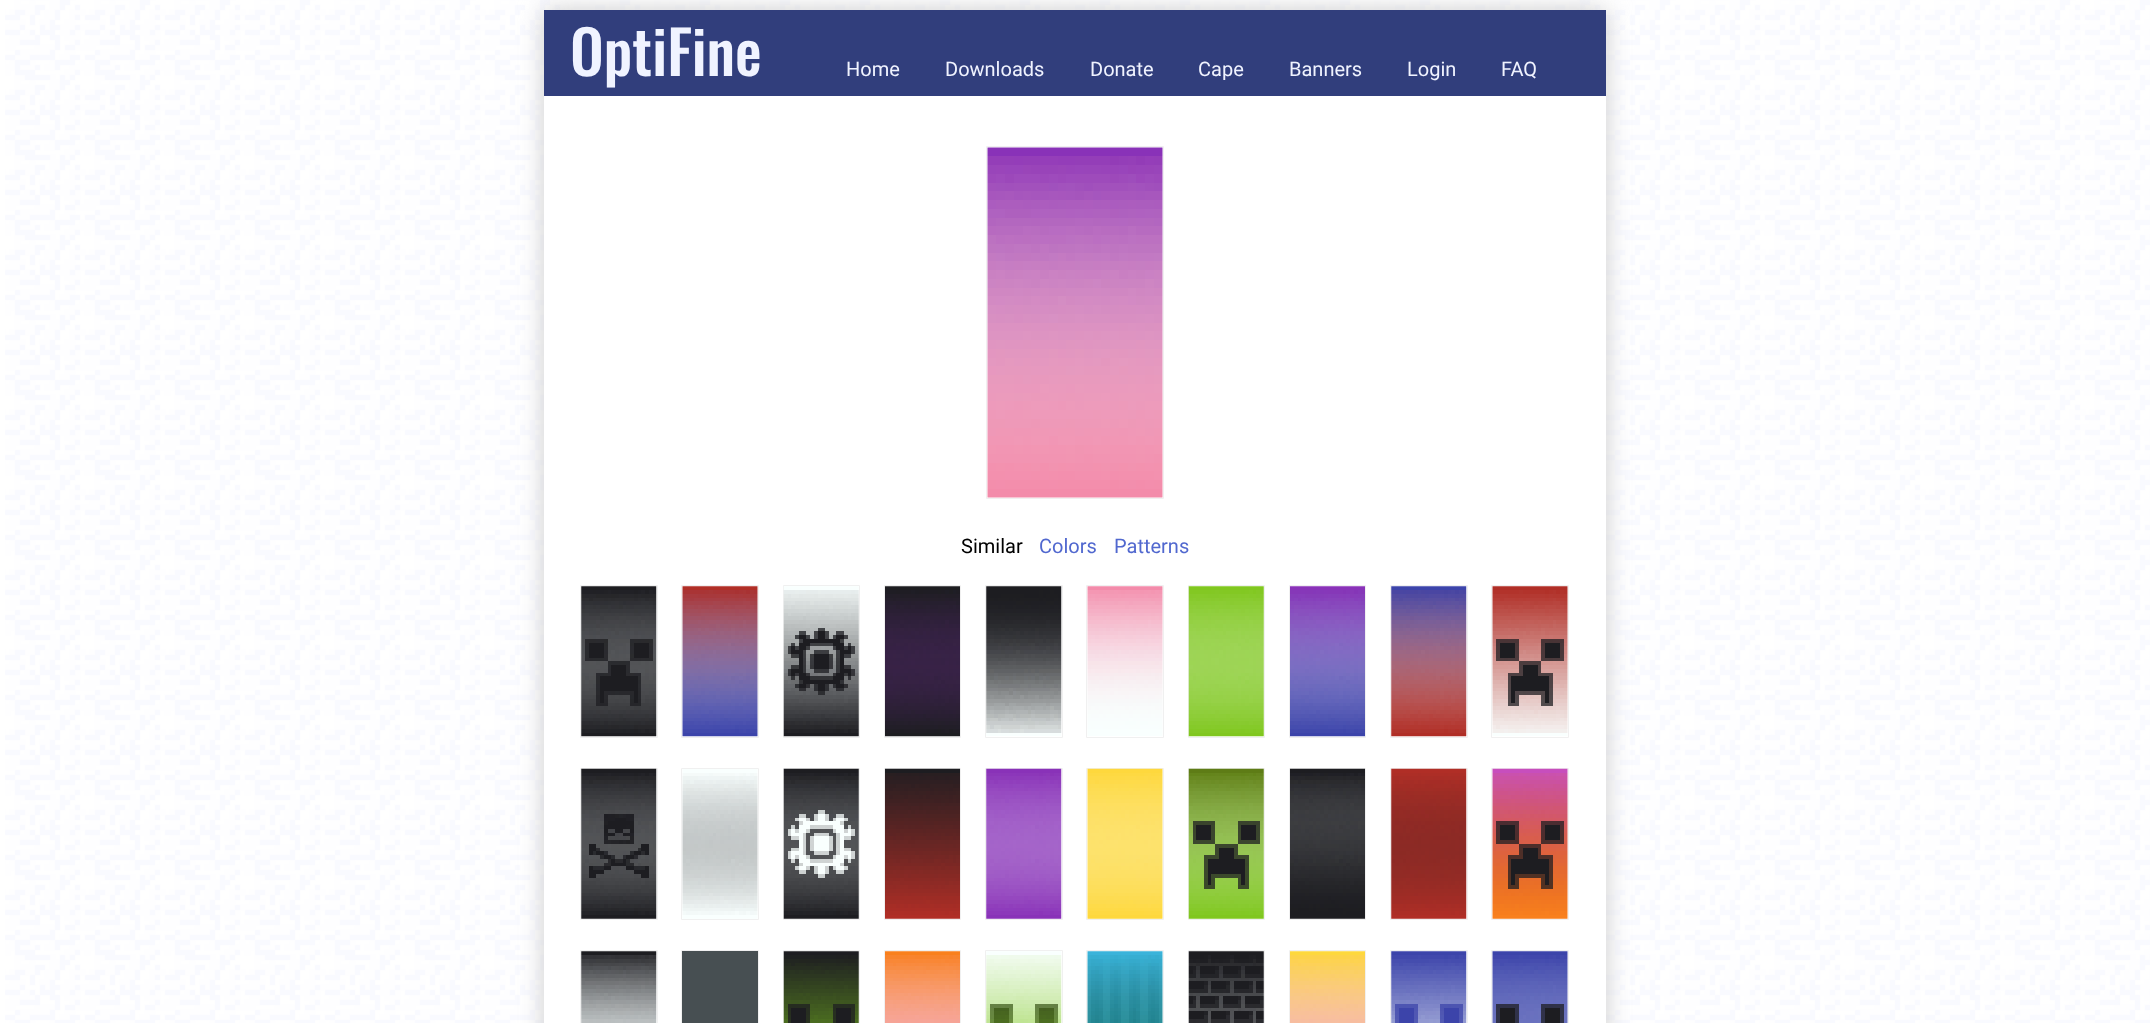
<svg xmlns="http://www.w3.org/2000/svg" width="2150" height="1023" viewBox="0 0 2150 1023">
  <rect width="100%" height="100%" fill="#fff"/>
  <image x="5" y="0" width="2145" height="1023" href="img/1.png"/>
  <path d="M544 10h1062v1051H544z" fill="#ccc" filter="blur(12.5px)"/>
  <path d="M544 96h1062v927H544z" fill="#fff"/>
  <path d="M544 10h1062v86H544z" fill="#313e7c"/>
  <path d="M986.5 146.5h177v352H986.5z" fill="none" stroke="#f0f0f0"/>
  <image x="987" y="147" width="176" height="351" href="img/2.png"/>
  <path d="M580.5 585.5h77v152H580.5z" fill="none" stroke="#f0f0f0"/>
  <image x="581" y="586" width="76" height="151" href="img/3.png"/>
  <path d="M681.5 585.5h77v152H681.5z" fill="none" stroke="#f0f0f0"/>
  <image x="682" y="586" width="76" height="151" href="img/4.png"/>
  <path d="M783.5 585.5h76v152H783.5z" fill="none" stroke="#f0f0f0"/>
  <image x="783" y="586" width="76" height="151" href="img/5.png"/>
  <path d="M884.5 585.5h76v152H884.5z" fill="none" stroke="#f0f0f0"/>
  <image x="885" y="586" width="75" height="151" href="img/6.png"/>
  <path d="M985.5 585.5h77v152H985.5z" fill="none" stroke="#f0f0f0"/>
  <image x="986" y="586" width="76" height="150" href="img/7.png"/>
  <path d="M1086.5 585.5h77v152H1086.5z" fill="none" stroke="#f0f0f0"/>
  <image x="1087" y="586" width="76" height="150" href="img/8.png"/>
  <path d="M1188.5 585.5h76v152H1188.5z" fill="none" stroke="#f0f0f0"/>
  <image x="1188" y="586" width="76" height="151" href="img/9.png"/>
  <path d="M1289.5 585.5h76v152H1289.5z" fill="none" stroke="#f0f0f0"/>
  <image x="1290" y="586" width="75" height="151" href="img/10.png"/>
  <path d="M1390.5 585.5h77v152H1390.5z" fill="none" stroke="#f0f0f0"/>
  <image x="1391" y="586" width="76" height="151" href="img/11.png"/>
  <path d="M1491.5 585.5h77v152H1491.5z" fill="none" stroke="#f0f0f0"/>
  <image x="1492" y="586" width="76" height="150" href="img/12.png"/>
  <path d="M580.5 768.5h77v151H580.5z" fill="none" stroke="#f0f0f0"/>
  <image x="581" y="768" width="76" height="151" href="img/13.png"/>
  <path d="M681.5 768.5h77v151H681.5z" fill="none" stroke="#f0f0f0"/>
  <image x="682" y="769" width="76" height="150" href="img/14.png"/>
  <path d="M783.5 768.5h76v151H783.5z" fill="none" stroke="#f0f0f0"/>
  <image x="783" y="768" width="76" height="151" href="img/15.png"/>
  <path d="M884.5 768.5h76v151H884.5z" fill="none" stroke="#f0f0f0"/>
  <image x="885" y="768" width="75" height="151" href="img/16.png"/>
  <path d="M985.5 768.5h77v151H985.5z" fill="none" stroke="#f0f0f0"/>
  <image x="986" y="768" width="76" height="151" href="img/17.png"/>
  <path d="M1086.5 768.5h77v151H1086.5z" fill="none" stroke="#f0f0f0"/>
  <image x="1087" y="768" width="76" height="151" href="img/18.png"/>
  <path d="M1188.5 768.5h76v151H1188.5z" fill="none" stroke="#f0f0f0"/>
  <image x="1188" y="768" width="76" height="151" href="img/19.png"/>
  <path d="M1289.5 768.5h76v151H1289.5z" fill="none" stroke="#f0f0f0"/>
  <image x="1290" y="768" width="75" height="151" href="img/20.png"/>
  <path d="M1390.5 768.5h77v151H1390.5z" fill="none" stroke="#f0f0f0"/>
  <image x="1391" y="768" width="76" height="151" href="img/21.png"/>
  <path d="M1491.5 768.5h77v151H1491.5z" fill="none" stroke="#f0f0f0"/>
  <image x="1492" y="768" width="76" height="151" href="img/22.png"/>
  <path d="M580.5 950.5h77v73H580.5z" fill="none" stroke="#f0f0f0"/>
  <image x="581" y="951" width="76" height="72" href="img/23.png"/>
  <path d="M681.5 950.5h77v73H681.5z" fill="none" stroke="#f0f0f0"/>
  <path d="M682 951h76v72H682z" fill="#474f52"/>
  <path d="M783.5 950.5h76v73H783.5z" fill="none" stroke="#f0f0f0"/>
  <image x="783" y="951" width="76" height="72" href="img/24.png"/>
  <path d="M884.5 950.5h76v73H884.5z" fill="none" stroke="#f0f0f0"/>
  <image x="885" y="951" width="75" height="72" href="img/25.png"/>
  <path d="M985.5 950.5h77v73H985.5z" fill="none" stroke="#f0f0f0"/>
  <image x="986" y="951" width="76" height="72" href="img/26.png"/>
  <path d="M1086.5 950.5h77v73H1086.5z" fill="none" stroke="#f0f0f0"/>
  <image x="1087" y="951" width="76" height="72" href="img/27.png"/>
  <path d="M1188.5 950.5h76v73H1188.5z" fill="none" stroke="#f0f0f0"/>
  <image x="1188" y="951" width="76" height="72" href="img/28.png"/>
  <path d="M1289.5 950.5h76v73H1289.5z" fill="none" stroke="#f0f0f0"/>
  <image x="1290" y="951" width="75" height="72" href="img/29.png"/>
  <path d="M1390.5 950.5h77v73H1390.5z" fill="none" stroke="#f0f0f0"/>
  <image x="1391" y="951" width="76" height="72" href="img/30.png"/>
  <path d="M1491.5 950.5h77v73H1491.5z" fill="none" stroke="#f0f0f0"/>
  <image x="1492" y="951" width="76" height="72" href="img/31.png"/>
  <text x="570" y="76" font-family="Oswald" font-size="60" font-weight="500" fill="#f0f3ff">OptiFine</text>
  <g font-family="Roboto" font-size="20" fill="#f0f3ff">
    <text x="846" y="76">Home</text>
    <text x="945" y="76">Downloads</text>
    <text x="1090" y="76">Donate</text>
    <text x="1198" y="76">Cape</text>
    <text x="1289" y="76">Banners</text>
    <text x="1407" y="76">Login</text>
    <text x="1501" y="76">FAQ</text>
  </g>
  <text x="961" y="553" font-family="Roboto" font-size="20" fill="#000">Similar</text>
  <g font-family="Roboto" font-size="20" fill="#5168cf">
    <text x="1039" y="553">Colors</text>
    <text x="1114" y="553">Patterns</text>
  </g>
</svg>
